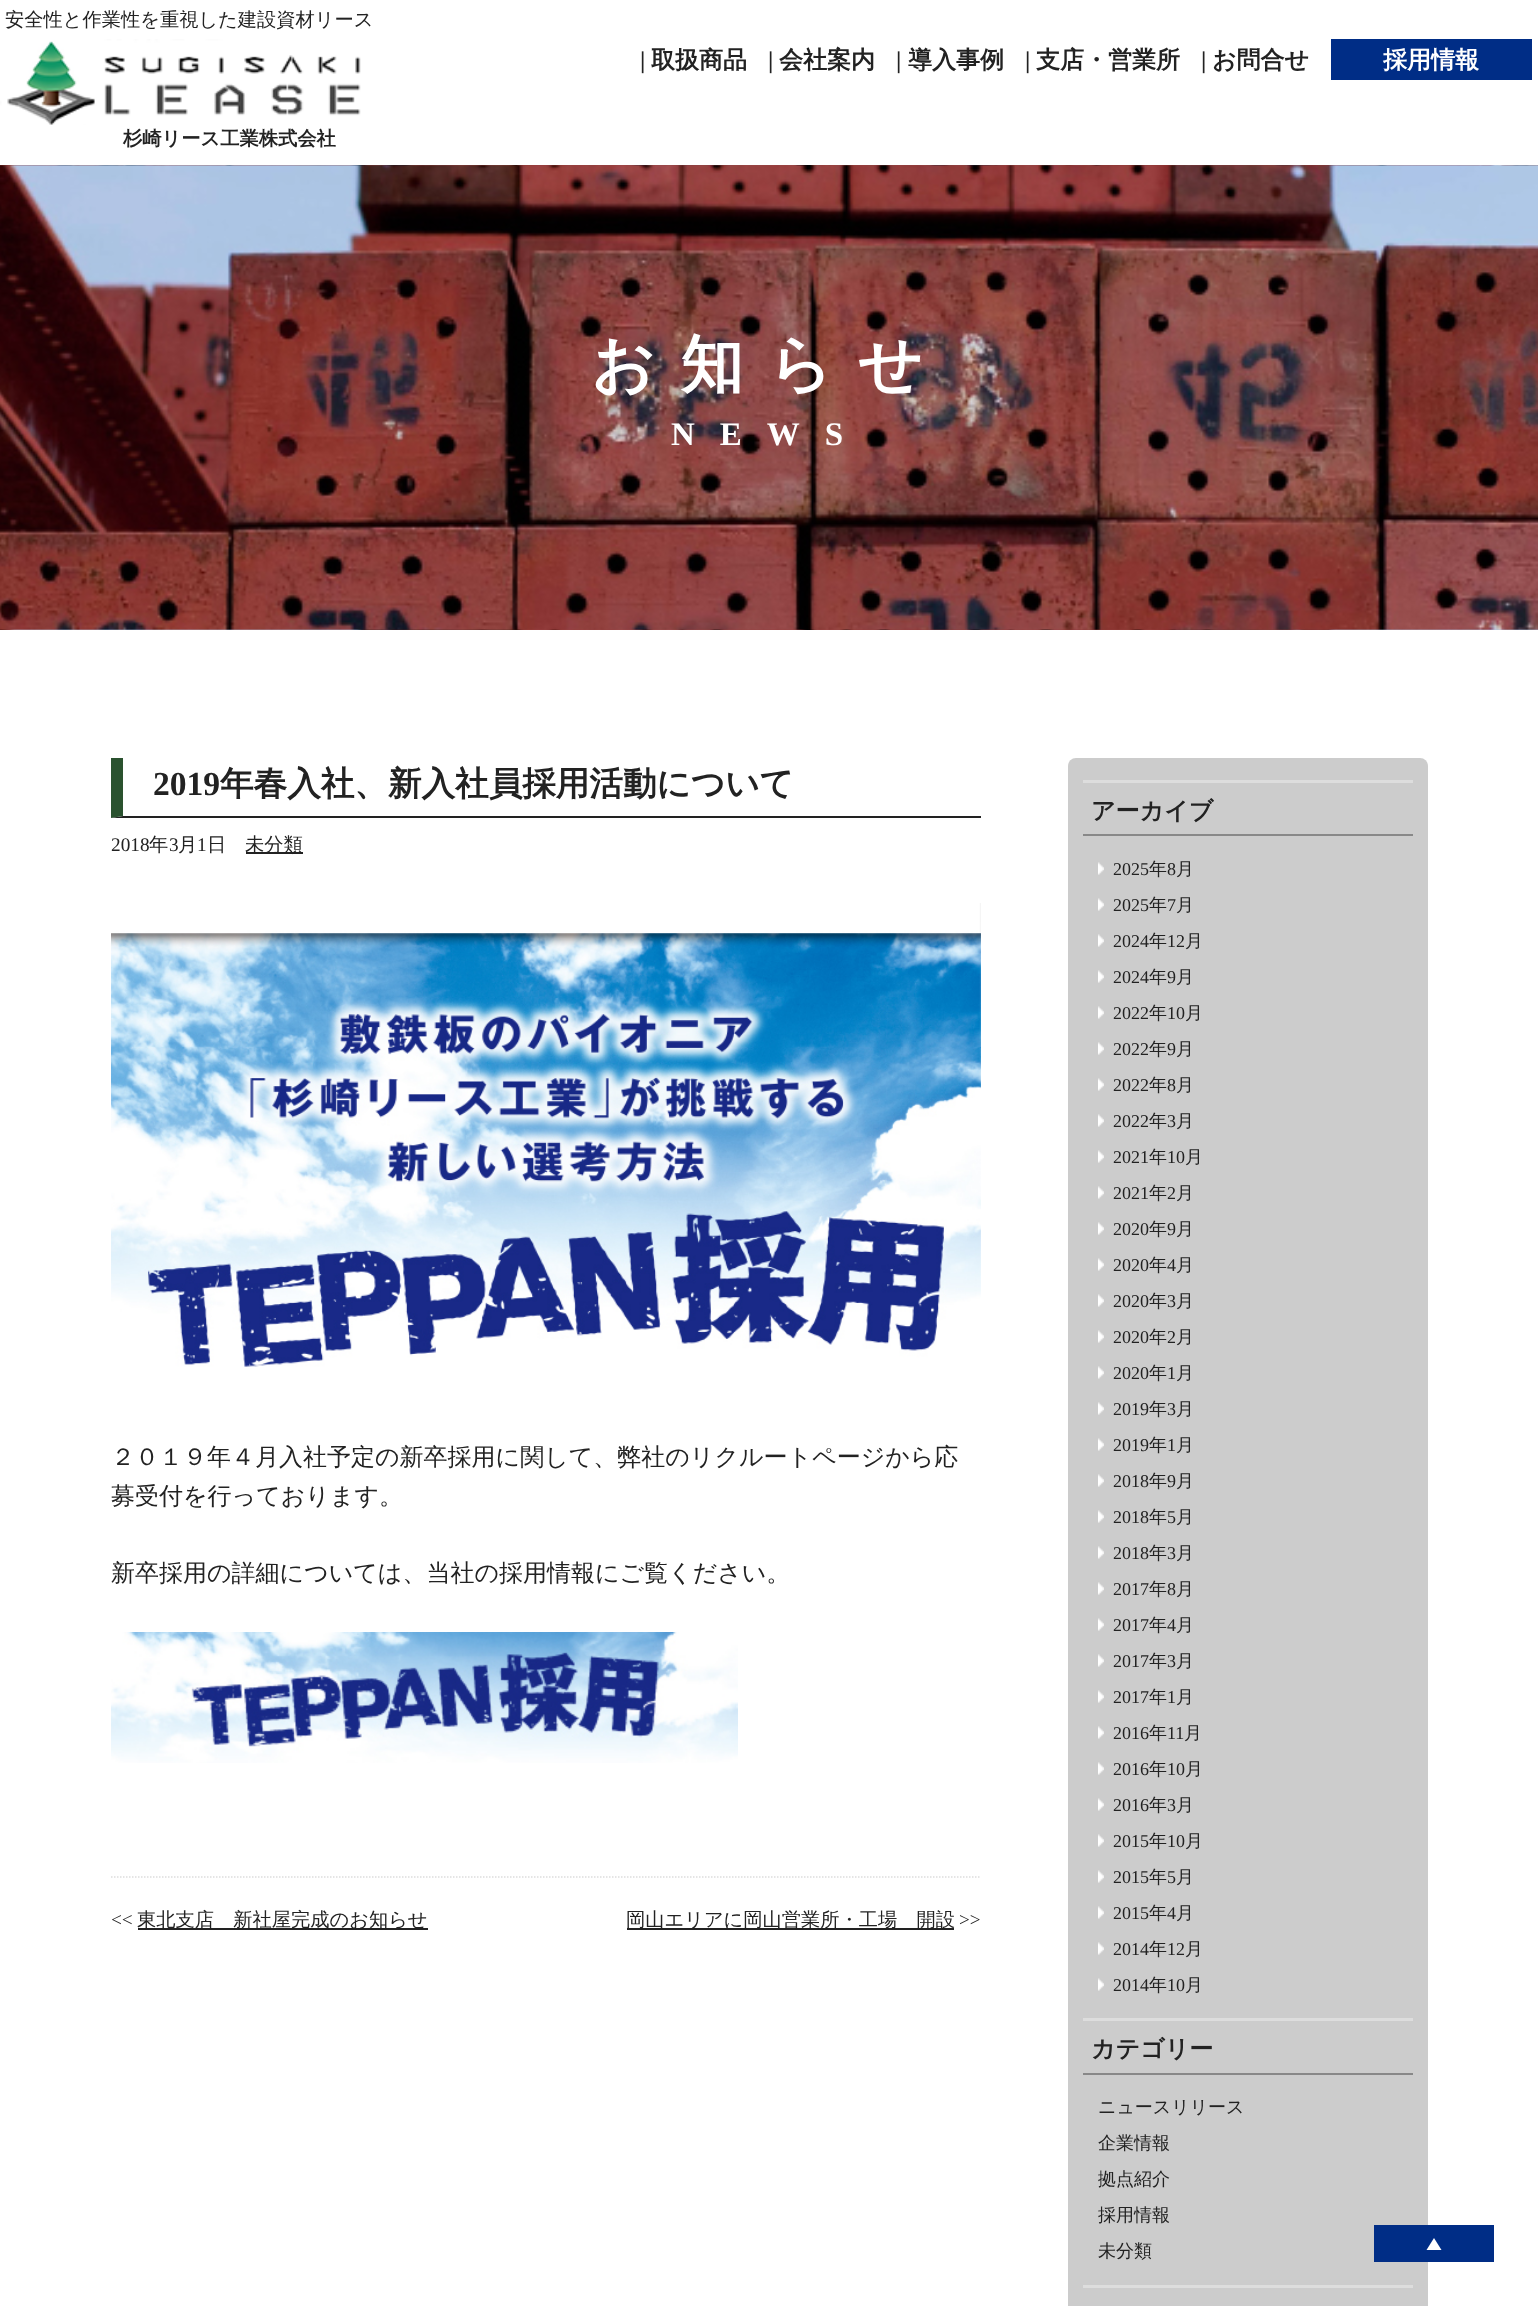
<svg xmlns="http://www.w3.org/2000/svg" width="1538" height="2306" viewBox="0 0 1538 2306">
  <rect width="100%" height="100%" fill="#fff"/>
  <image x="0" y="39" width="361" height="86" href="img/1.png"/>
  <path d="M1331 39h201v41H1331z" fill="#002d86"/>
  <image x="0" y="165" width="1538" height="465" href="img/2.png"/>
  <path d="M981 818H111L123 816H981Z" fill="#222"/>
  <path d="M111 818V758H123V816Z" fill="#2a522f"/>
  <path d="M246 852h57v2H246z" fill="#222"/>
  <image x="111" y="903" width="870" height="464" href="img/3.png"/>
  <image x="111" y="1632" width="627" height="131" href="img/4.png"/>
  <path d="M111 1877H981" fill="none" stroke="#ddd" stroke-width="1.5" stroke-dasharray="1.5 1.5"/>
  <path d="M138 1928h290v2H138z" fill="#222"/>
  <path d="M627 1928h327v2H627z" fill="#222"/>
  <rect x="1068" y="758" width="360" height="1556" rx="8" fill="#ccc"/>
  <path d="M1083 780h330v3H1083z" fill="#ddd"/>
  <path d="M1083 834h330v2H1083z" fill="#888"/>
  <image x="1098" y="862" width="6" height="13" href="img/5.png"/>
  <image x="1098" y="898" width="6" height="13" href="img/5.png"/>
  <image x="1098" y="934" width="6" height="13" href="img/5.png"/>
  <image x="1098" y="970" width="6" height="13" href="img/5.png"/>
  <image x="1098" y="1006" width="6" height="13" href="img/5.png"/>
  <image x="1098" y="1042" width="6" height="13" href="img/5.png"/>
  <image x="1098" y="1078" width="6" height="13" href="img/5.png"/>
  <image x="1098" y="1114" width="6" height="13" href="img/5.png"/>
  <image x="1098" y="1150" width="6" height="13" href="img/5.png"/>
  <image x="1098" y="1186" width="6" height="13" href="img/5.png"/>
  <image x="1098" y="1222" width="6" height="13" href="img/5.png"/>
  <image x="1098" y="1258" width="6" height="13" href="img/5.png"/>
  <image x="1098" y="1294" width="6" height="13" href="img/5.png"/>
  <image x="1098" y="1330" width="6" height="13" href="img/5.png"/>
  <image x="1098" y="1366" width="6" height="13" href="img/5.png"/>
  <image x="1098" y="1402" width="6" height="13" href="img/5.png"/>
  <image x="1098" y="1438" width="6" height="13" href="img/5.png"/>
  <image x="1098" y="1474" width="6" height="13" href="img/5.png"/>
  <image x="1098" y="1510" width="6" height="13" href="img/5.png"/>
  <image x="1098" y="1546" width="6" height="13" href="img/5.png"/>
  <image x="1098" y="1582" width="6" height="13" href="img/5.png"/>
  <image x="1098" y="1618" width="6" height="13" href="img/5.png"/>
  <image x="1098" y="1654" width="6" height="13" href="img/5.png"/>
  <image x="1098" y="1690" width="6" height="13" href="img/5.png"/>
  <image x="1098" y="1726" width="6" height="13" href="img/5.png"/>
  <image x="1098" y="1762" width="6" height="13" href="img/5.png"/>
  <image x="1098" y="1798" width="6" height="13" href="img/5.png"/>
  <image x="1098" y="1834" width="6" height="13" href="img/5.png"/>
  <image x="1098" y="1870" width="6" height="13" href="img/5.png"/>
  <image x="1098" y="1906" width="6" height="13" href="img/5.png"/>
  <image x="1098" y="1942" width="6" height="13" href="img/5.png"/>
  <image x="1098" y="1978" width="6" height="13" href="img/5.png"/>
  <path d="M1083 2018h330v3H1083z" fill="#ddd"/>
  <path d="M1083 2073h330v2H1083z" fill="#888"/>
  <path d="M1083 2285h330v3H1083z" fill="#ddd"/>
  <path d="M1374 2225h120v37H1374z" fill="#002d86"/>
  <path d="M1441.5 2250H1426.5L1434 2238Z" fill="#fff"/>
  <text x="5" y="26" font-family="WenQuanYi Zen Hei" font-size="19.25" font-weight="500" fill="#222">安全性と作業性を重視した建設資材リース</text>
  <text x="123" y="145" font-family="WenQuanYi Zen Hei" font-size="19.25" font-weight="bold" fill="#222">杉崎リース工業株式会社</text>
  <text x="640" y="68" font-family="Liberation Serif" font-size="24" font-weight="bold" fill="#222">|</text>
  <text x="651" y="68" font-family="WenQuanYi Zen Hei" font-size="24" font-weight="bold" fill="#222">取扱商品</text>
  <text x="768" y="68" font-family="Liberation Serif" font-size="24" font-weight="bold" fill="#222">|</text>
  <text x="779" y="68" font-family="WenQuanYi Zen Hei" font-size="24" font-weight="bold" fill="#222">会社案内</text>
  <text x="896" y="68" font-family="Liberation Serif" font-size="24" font-weight="bold" fill="#222">|</text>
  <text x="908" y="68" font-family="WenQuanYi Zen Hei" font-size="24" font-weight="bold" fill="#222">導入事例</text>
  <text x="1025" y="68" font-family="Liberation Serif" font-size="24" font-weight="bold" fill="#222">|</text>
  <text x="1036" y="68" font-family="WenQuanYi Zen Hei" font-size="24" font-weight="bold" fill="#222">支店・営業所</text>
  <text x="1201" y="68" font-family="Liberation Serif" font-size="24" font-weight="bold" fill="#222">|</text>
  <text x="1212" y="68" font-family="WenQuanYi Zen Hei" font-size="24" font-weight="bold" fill="#222">お問合せ</text>
  <text x="1383" y="68" font-family="WenQuanYi Zen Hei" font-size="24" font-weight="bold" fill="#fff">採用情報</text>
  <text x="591" y="386" font-family="WenQuanYi Zen Hei" font-size="63" font-weight="bold" letter-spacing="25" fill="#fff">お知らせ</text>
  <text x="671" y="445" font-family="Liberation Serif" font-size="33" font-weight="bold" letter-spacing="25" fill="#fff">NEWS</text>
  <text x="153" y="795" font-family="Liberation Serif" font-size="33.6" font-weight="bold" fill="#222">2019</text>
  <text x="220" y="795" font-family="WenQuanYi Zen Hei" font-size="33.6" font-weight="bold" fill="#222">年春入社、新入社員採用活動について</text>
  <text x="111" y="851" font-family="Liberation Serif" font-size="19.25" fill="#222">2018</text>
  <text x="149" y="851" font-family="WenQuanYi Zen Hei" font-size="19.25" font-weight="500" fill="#222">年</text>
  <text x="169" y="851" font-family="Liberation Serif" font-size="19.25" fill="#222">3</text>
  <text x="178" y="851" font-family="WenQuanYi Zen Hei" font-size="19.25" font-weight="500" fill="#222">月</text>
  <text x="197" y="851" font-family="Liberation Serif" font-size="19.25" fill="#222">1</text>
  <g font-family="WenQuanYi Zen Hei" font-size="19.25" font-weight="500" fill="#222">
    <text x="207" y="851">日</text>
    <text x="245" y="851">未分類</text>
  </g>
  <g font-family="WenQuanYi Zen Hei" font-size="24" font-weight="500" fill="#222">
    <text x="111" y="1465">２０１９年４月入社予定の新卒採用に関して、弊社のリクルートページから応</text>
    <text x="111" y="1504">募受付を行っております。</text>
    <text x="111" y="1581">新卒採用の詳細については、当社の採用情報にご覧ください。</text>
  </g>
  <text x="111" y="1926" font-family="Liberation Serif" font-size="19.25" fill="#222">&lt;&lt;</text>
  <g font-family="WenQuanYi Zen Hei" font-size="19.25" font-weight="500" fill="#222">
    <text x="137" y="1926">東北支店　新社屋完成のお知らせ</text>
    <text x="626" y="1926">岡山エリアに岡山営業所・工場　開設</text>
  </g>
  <text x="959" y="1926" font-family="Liberation Serif" font-size="19.25" fill="#222">&gt;&gt;</text>
  <text x="1091" y="819" font-family="WenQuanYi Zen Hei" font-size="24" font-weight="bold" fill="#222">アーカイブ</text>
  <text x="1113" y="875" font-family="Liberation Serif" font-size="18" fill="#222">2025</text>
  <text x="1149" y="875" font-family="WenQuanYi Zen Hei" font-size="18" font-weight="500" fill="#222">年</text>
  <text x="1167" y="875" font-family="Liberation Serif" font-size="18" fill="#222">8</text>
  <text x="1176" y="875" font-family="WenQuanYi Zen Hei" font-size="18" font-weight="500" fill="#222">月</text>
  <text x="1113" y="911" font-family="Liberation Serif" font-size="18" fill="#222">2025</text>
  <text x="1149" y="911" font-family="WenQuanYi Zen Hei" font-size="18" font-weight="500" fill="#222">年</text>
  <text x="1167" y="911" font-family="Liberation Serif" font-size="18" fill="#222">7</text>
  <text x="1176" y="911" font-family="WenQuanYi Zen Hei" font-size="18" font-weight="500" fill="#222">月</text>
  <text x="1113" y="947" font-family="Liberation Serif" font-size="18" fill="#222">2024</text>
  <text x="1149" y="947" font-family="WenQuanYi Zen Hei" font-size="18" font-weight="500" fill="#222">年</text>
  <text x="1167" y="947" font-family="Liberation Serif" font-size="18" fill="#222">12</text>
  <text x="1185" y="947" font-family="WenQuanYi Zen Hei" font-size="18" font-weight="500" fill="#222">月</text>
  <text x="1113" y="983" font-family="Liberation Serif" font-size="18" fill="#222">2024</text>
  <text x="1149" y="983" font-family="WenQuanYi Zen Hei" font-size="18" font-weight="500" fill="#222">年</text>
  <text x="1167" y="983" font-family="Liberation Serif" font-size="18" fill="#222">9</text>
  <text x="1176" y="983" font-family="WenQuanYi Zen Hei" font-size="18" font-weight="500" fill="#222">月</text>
  <text x="1113" y="1019" font-family="Liberation Serif" font-size="18" fill="#222">2022</text>
  <text x="1149" y="1019" font-family="WenQuanYi Zen Hei" font-size="18" font-weight="500" fill="#222">年</text>
  <text x="1167" y="1019" font-family="Liberation Serif" font-size="18" fill="#222">10</text>
  <text x="1185" y="1019" font-family="WenQuanYi Zen Hei" font-size="18" font-weight="500" fill="#222">月</text>
  <text x="1113" y="1055" font-family="Liberation Serif" font-size="18" fill="#222">2022</text>
  <text x="1149" y="1055" font-family="WenQuanYi Zen Hei" font-size="18" font-weight="500" fill="#222">年</text>
  <text x="1167" y="1055" font-family="Liberation Serif" font-size="18" fill="#222">9</text>
  <text x="1176" y="1055" font-family="WenQuanYi Zen Hei" font-size="18" font-weight="500" fill="#222">月</text>
  <text x="1113" y="1091" font-family="Liberation Serif" font-size="18" fill="#222">2022</text>
  <text x="1149" y="1091" font-family="WenQuanYi Zen Hei" font-size="18" font-weight="500" fill="#222">年</text>
  <text x="1167" y="1091" font-family="Liberation Serif" font-size="18" fill="#222">8</text>
  <text x="1176" y="1091" font-family="WenQuanYi Zen Hei" font-size="18" font-weight="500" fill="#222">月</text>
  <text x="1113" y="1127" font-family="Liberation Serif" font-size="18" fill="#222">2022</text>
  <text x="1149" y="1127" font-family="WenQuanYi Zen Hei" font-size="18" font-weight="500" fill="#222">年</text>
  <text x="1167" y="1127" font-family="Liberation Serif" font-size="18" fill="#222">3</text>
  <text x="1176" y="1127" font-family="WenQuanYi Zen Hei" font-size="18" font-weight="500" fill="#222">月</text>
  <text x="1113" y="1163" font-family="Liberation Serif" font-size="18" fill="#222">2021</text>
  <text x="1149" y="1163" font-family="WenQuanYi Zen Hei" font-size="18" font-weight="500" fill="#222">年</text>
  <text x="1167" y="1163" font-family="Liberation Serif" font-size="18" fill="#222">10</text>
  <text x="1185" y="1163" font-family="WenQuanYi Zen Hei" font-size="18" font-weight="500" fill="#222">月</text>
  <text x="1113" y="1199" font-family="Liberation Serif" font-size="18" fill="#222">2021</text>
  <text x="1149" y="1199" font-family="WenQuanYi Zen Hei" font-size="18" font-weight="500" fill="#222">年</text>
  <text x="1167" y="1199" font-family="Liberation Serif" font-size="18" fill="#222">2</text>
  <text x="1176" y="1199" font-family="WenQuanYi Zen Hei" font-size="18" font-weight="500" fill="#222">月</text>
  <text x="1113" y="1235" font-family="Liberation Serif" font-size="18" fill="#222">2020</text>
  <text x="1149" y="1235" font-family="WenQuanYi Zen Hei" font-size="18" font-weight="500" fill="#222">年</text>
  <text x="1167" y="1235" font-family="Liberation Serif" font-size="18" fill="#222">9</text>
  <text x="1176" y="1235" font-family="WenQuanYi Zen Hei" font-size="18" font-weight="500" fill="#222">月</text>
  <text x="1113" y="1271" font-family="Liberation Serif" font-size="18" fill="#222">2020</text>
  <text x="1149" y="1271" font-family="WenQuanYi Zen Hei" font-size="18" font-weight="500" fill="#222">年</text>
  <text x="1167" y="1271" font-family="Liberation Serif" font-size="18" fill="#222">4</text>
  <text x="1176" y="1271" font-family="WenQuanYi Zen Hei" font-size="18" font-weight="500" fill="#222">月</text>
  <text x="1113" y="1307" font-family="Liberation Serif" font-size="18" fill="#222">2020</text>
  <text x="1149" y="1307" font-family="WenQuanYi Zen Hei" font-size="18" font-weight="500" fill="#222">年</text>
  <text x="1167" y="1307" font-family="Liberation Serif" font-size="18" fill="#222">3</text>
  <text x="1176" y="1307" font-family="WenQuanYi Zen Hei" font-size="18" font-weight="500" fill="#222">月</text>
  <text x="1113" y="1343" font-family="Liberation Serif" font-size="18" fill="#222">2020</text>
  <text x="1149" y="1343" font-family="WenQuanYi Zen Hei" font-size="18" font-weight="500" fill="#222">年</text>
  <text x="1167" y="1343" font-family="Liberation Serif" font-size="18" fill="#222">2</text>
  <text x="1176" y="1343" font-family="WenQuanYi Zen Hei" font-size="18" font-weight="500" fill="#222">月</text>
  <text x="1113" y="1379" font-family="Liberation Serif" font-size="18" fill="#222">2020</text>
  <text x="1149" y="1379" font-family="WenQuanYi Zen Hei" font-size="18" font-weight="500" fill="#222">年</text>
  <text x="1167" y="1379" font-family="Liberation Serif" font-size="18" fill="#222">1</text>
  <text x="1176" y="1379" font-family="WenQuanYi Zen Hei" font-size="18" font-weight="500" fill="#222">月</text>
  <text x="1113" y="1415" font-family="Liberation Serif" font-size="18" fill="#222">2019</text>
  <text x="1149" y="1415" font-family="WenQuanYi Zen Hei" font-size="18" font-weight="500" fill="#222">年</text>
  <text x="1167" y="1415" font-family="Liberation Serif" font-size="18" fill="#222">3</text>
  <text x="1176" y="1415" font-family="WenQuanYi Zen Hei" font-size="18" font-weight="500" fill="#222">月</text>
  <text x="1113" y="1451" font-family="Liberation Serif" font-size="18" fill="#222">2019</text>
  <text x="1149" y="1451" font-family="WenQuanYi Zen Hei" font-size="18" font-weight="500" fill="#222">年</text>
  <text x="1167" y="1451" font-family="Liberation Serif" font-size="18" fill="#222">1</text>
  <text x="1176" y="1451" font-family="WenQuanYi Zen Hei" font-size="18" font-weight="500" fill="#222">月</text>
  <text x="1113" y="1487" font-family="Liberation Serif" font-size="18" fill="#222">2018</text>
  <text x="1149" y="1487" font-family="WenQuanYi Zen Hei" font-size="18" font-weight="500" fill="#222">年</text>
  <text x="1167" y="1487" font-family="Liberation Serif" font-size="18" fill="#222">9</text>
  <text x="1176" y="1487" font-family="WenQuanYi Zen Hei" font-size="18" font-weight="500" fill="#222">月</text>
  <text x="1113" y="1523" font-family="Liberation Serif" font-size="18" fill="#222">2018</text>
  <text x="1149" y="1523" font-family="WenQuanYi Zen Hei" font-size="18" font-weight="500" fill="#222">年</text>
  <text x="1167" y="1523" font-family="Liberation Serif" font-size="18" fill="#222">5</text>
  <text x="1176" y="1523" font-family="WenQuanYi Zen Hei" font-size="18" font-weight="500" fill="#222">月</text>
  <text x="1113" y="1559" font-family="Liberation Serif" font-size="18" fill="#222">2018</text>
  <text x="1149" y="1559" font-family="WenQuanYi Zen Hei" font-size="18" font-weight="500" fill="#222">年</text>
  <text x="1167" y="1559" font-family="Liberation Serif" font-size="18" fill="#222">3</text>
  <text x="1176" y="1559" font-family="WenQuanYi Zen Hei" font-size="18" font-weight="500" fill="#222">月</text>
  <text x="1113" y="1595" font-family="Liberation Serif" font-size="18" fill="#222">2017</text>
  <text x="1149" y="1595" font-family="WenQuanYi Zen Hei" font-size="18" font-weight="500" fill="#222">年</text>
  <text x="1167" y="1595" font-family="Liberation Serif" font-size="18" fill="#222">8</text>
  <text x="1176" y="1595" font-family="WenQuanYi Zen Hei" font-size="18" font-weight="500" fill="#222">月</text>
  <text x="1113" y="1631" font-family="Liberation Serif" font-size="18" fill="#222">2017</text>
  <text x="1149" y="1631" font-family="WenQuanYi Zen Hei" font-size="18" font-weight="500" fill="#222">年</text>
  <text x="1167" y="1631" font-family="Liberation Serif" font-size="18" fill="#222">4</text>
  <text x="1176" y="1631" font-family="WenQuanYi Zen Hei" font-size="18" font-weight="500" fill="#222">月</text>
  <text x="1113" y="1667" font-family="Liberation Serif" font-size="18" fill="#222">2017</text>
  <text x="1149" y="1667" font-family="WenQuanYi Zen Hei" font-size="18" font-weight="500" fill="#222">年</text>
  <text x="1167" y="1667" font-family="Liberation Serif" font-size="18" fill="#222">3</text>
  <text x="1176" y="1667" font-family="WenQuanYi Zen Hei" font-size="18" font-weight="500" fill="#222">月</text>
  <text x="1113" y="1703" font-family="Liberation Serif" font-size="18" fill="#222">2017</text>
  <text x="1149" y="1703" font-family="WenQuanYi Zen Hei" font-size="18" font-weight="500" fill="#222">年</text>
  <text x="1167" y="1703" font-family="Liberation Serif" font-size="18" fill="#222">1</text>
  <text x="1176" y="1703" font-family="WenQuanYi Zen Hei" font-size="18" font-weight="500" fill="#222">月</text>
  <text x="1113" y="1739" font-family="Liberation Serif" font-size="18" fill="#222">2016</text>
  <text x="1149" y="1739" font-family="WenQuanYi Zen Hei" font-size="18" font-weight="500" fill="#222">年</text>
  <text x="1167" y="1739" font-family="Liberation Serif" font-size="18" fill="#222">11</text>
  <text x="1184" y="1739" font-family="WenQuanYi Zen Hei" font-size="18" font-weight="500" fill="#222">月</text>
  <text x="1113" y="1775" font-family="Liberation Serif" font-size="18" fill="#222">2016</text>
  <text x="1149" y="1775" font-family="WenQuanYi Zen Hei" font-size="18" font-weight="500" fill="#222">年</text>
  <text x="1167" y="1775" font-family="Liberation Serif" font-size="18" fill="#222">10</text>
  <text x="1185" y="1775" font-family="WenQuanYi Zen Hei" font-size="18" font-weight="500" fill="#222">月</text>
  <text x="1113" y="1811" font-family="Liberation Serif" font-size="18" fill="#222">2016</text>
  <text x="1149" y="1811" font-family="WenQuanYi Zen Hei" font-size="18" font-weight="500" fill="#222">年</text>
  <text x="1167" y="1811" font-family="Liberation Serif" font-size="18" fill="#222">3</text>
  <text x="1176" y="1811" font-family="WenQuanYi Zen Hei" font-size="18" font-weight="500" fill="#222">月</text>
  <text x="1113" y="1847" font-family="Liberation Serif" font-size="18" fill="#222">2015</text>
  <text x="1149" y="1847" font-family="WenQuanYi Zen Hei" font-size="18" font-weight="500" fill="#222">年</text>
  <text x="1167" y="1847" font-family="Liberation Serif" font-size="18" fill="#222">10</text>
  <text x="1185" y="1847" font-family="WenQuanYi Zen Hei" font-size="18" font-weight="500" fill="#222">月</text>
  <text x="1113" y="1883" font-family="Liberation Serif" font-size="18" fill="#222">2015</text>
  <text x="1149" y="1883" font-family="WenQuanYi Zen Hei" font-size="18" font-weight="500" fill="#222">年</text>
  <text x="1167" y="1883" font-family="Liberation Serif" font-size="18" fill="#222">5</text>
  <text x="1176" y="1883" font-family="WenQuanYi Zen Hei" font-size="18" font-weight="500" fill="#222">月</text>
  <text x="1113" y="1919" font-family="Liberation Serif" font-size="18" fill="#222">2015</text>
  <text x="1149" y="1919" font-family="WenQuanYi Zen Hei" font-size="18" font-weight="500" fill="#222">年</text>
  <text x="1167" y="1919" font-family="Liberation Serif" font-size="18" fill="#222">4</text>
  <text x="1176" y="1919" font-family="WenQuanYi Zen Hei" font-size="18" font-weight="500" fill="#222">月</text>
  <text x="1113" y="1955" font-family="Liberation Serif" font-size="18" fill="#222">2014</text>
  <text x="1149" y="1955" font-family="WenQuanYi Zen Hei" font-size="18" font-weight="500" fill="#222">年</text>
  <text x="1167" y="1955" font-family="Liberation Serif" font-size="18" fill="#222">12</text>
  <text x="1185" y="1955" font-family="WenQuanYi Zen Hei" font-size="18" font-weight="500" fill="#222">月</text>
  <text x="1113" y="1991" font-family="Liberation Serif" font-size="18" fill="#222">2014</text>
  <text x="1149" y="1991" font-family="WenQuanYi Zen Hei" font-size="18" font-weight="500" fill="#222">年</text>
  <text x="1167" y="1991" font-family="Liberation Serif" font-size="18" fill="#222">10</text>
  <text x="1185" y="1991" font-family="WenQuanYi Zen Hei" font-size="18" font-weight="500" fill="#222">月</text>
  <text x="1091" y="2057" font-family="WenQuanYi Zen Hei" font-size="24" font-weight="bold" fill="#222">カテゴリー</text>
  <g font-family="WenQuanYi Zen Hei" font-size="18" font-weight="500" fill="#222">
    <text x="1098" y="2113">ニュースリリース</text>
    <text x="1098" y="2149">企業情報</text>
    <text x="1098" y="2185">拠点紹介</text>
    <text x="1098" y="2221">採用情報</text>
    <text x="1098" y="2257">未分類</text>
  </g>
</svg>
